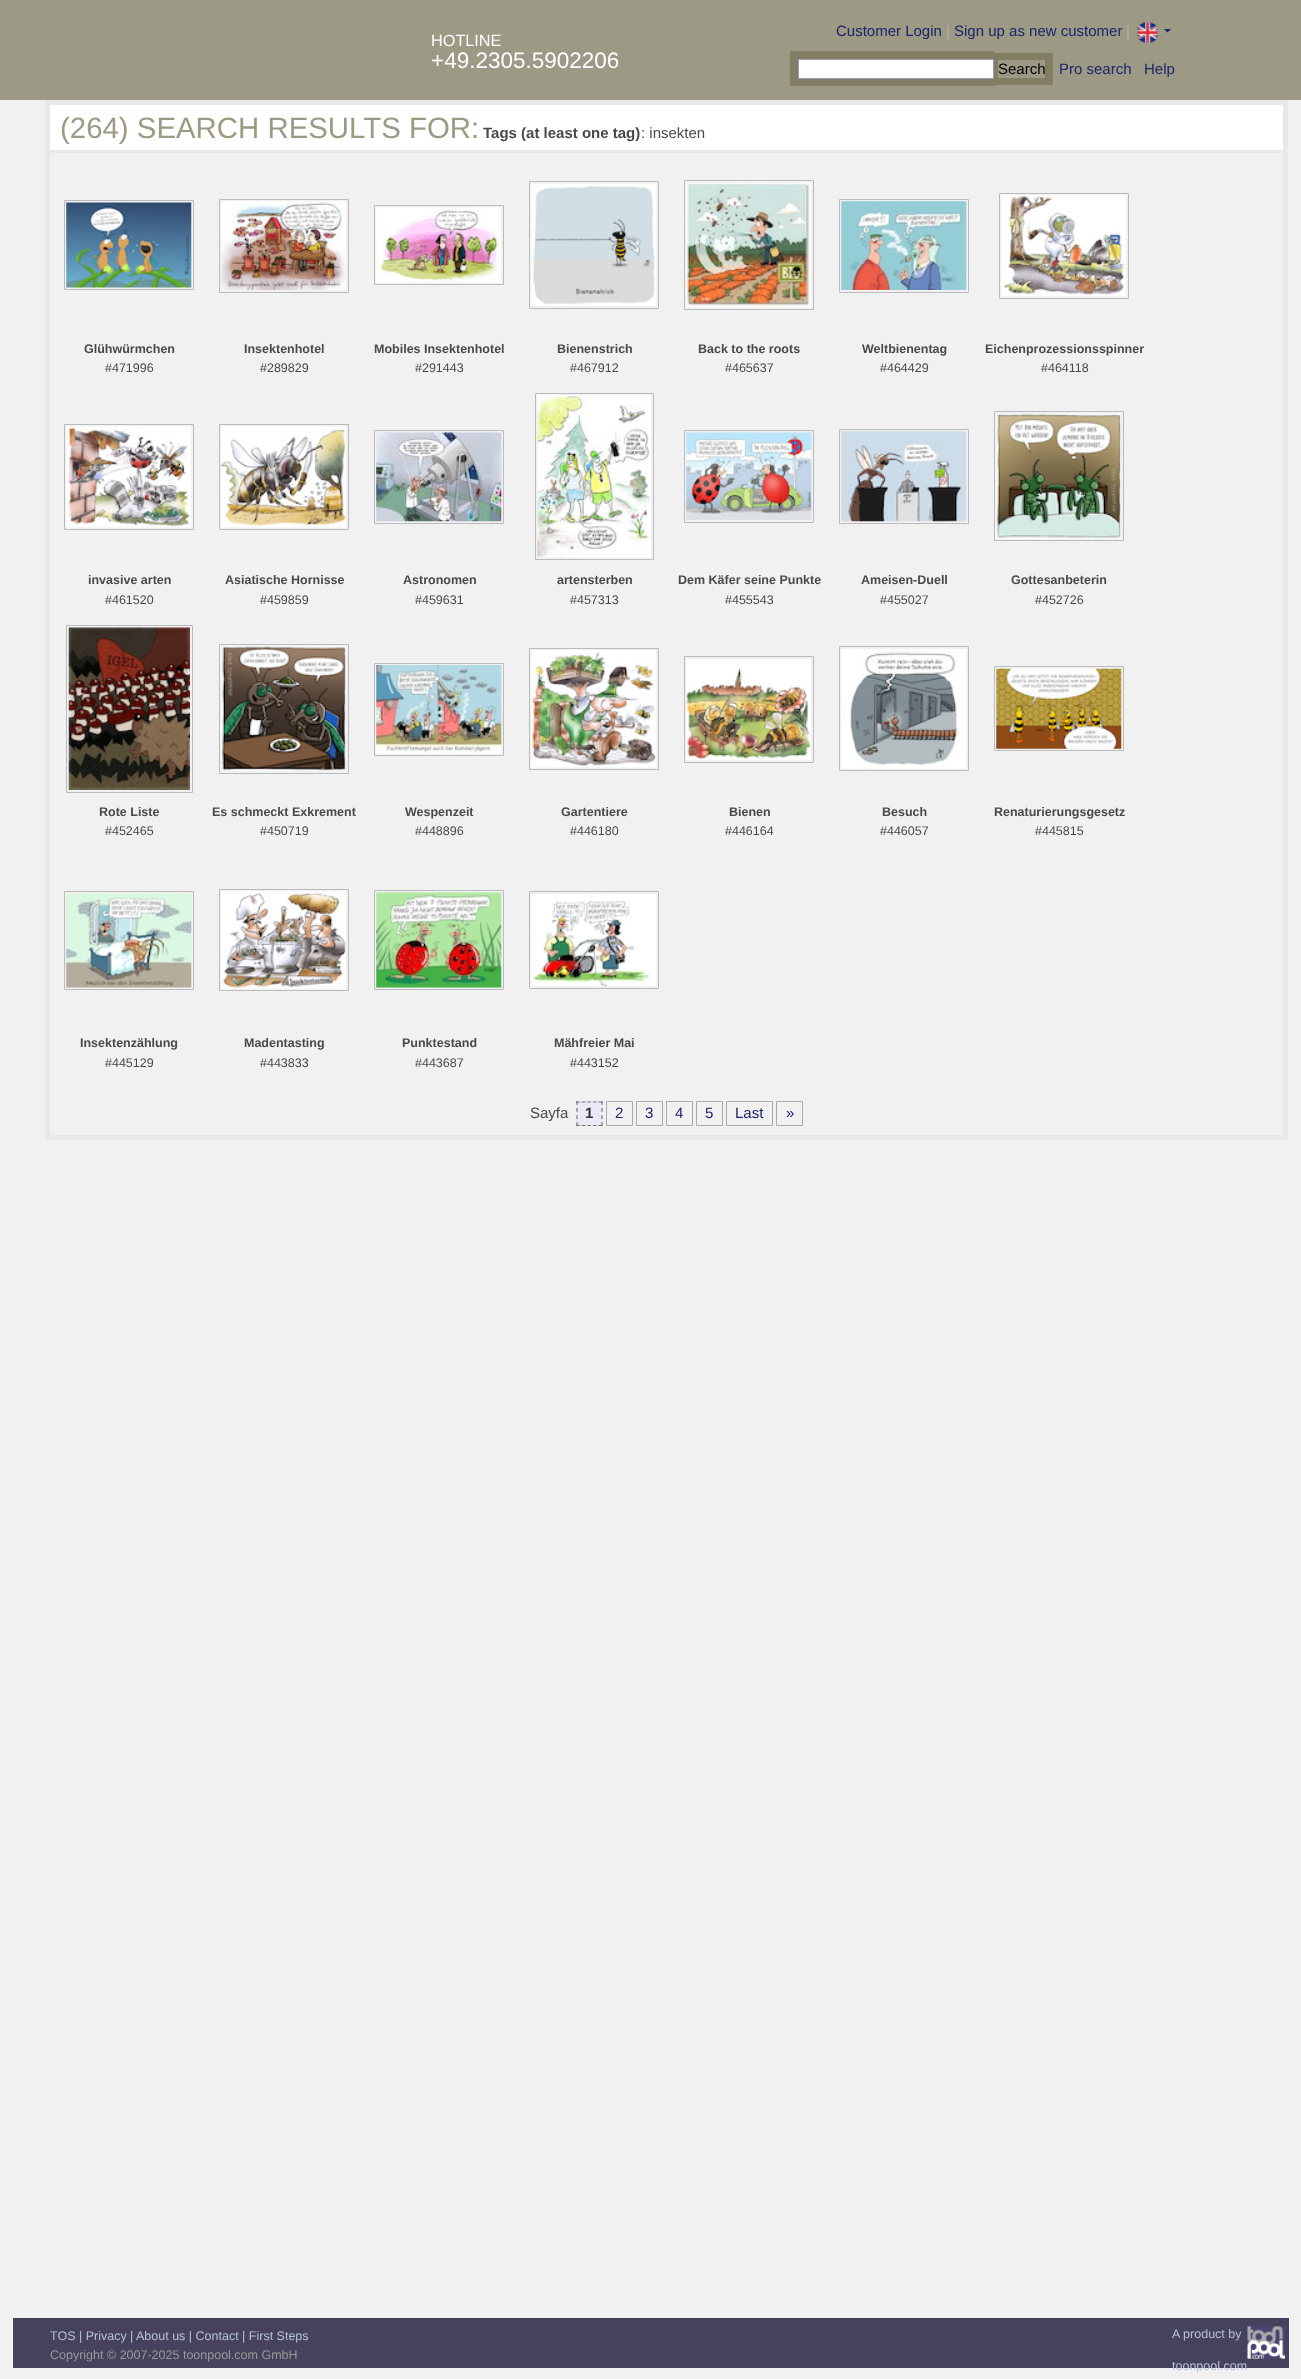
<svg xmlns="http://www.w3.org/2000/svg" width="1301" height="2379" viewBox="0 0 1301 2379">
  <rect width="100%" height="100%" fill="#f1f1f1"/>
  <path d="M0 0h1301v100H0z" fill="#9c9984"/>
  <image x="1137" y="22" width="21" height="21" href="img/1.png"/>
  <path d="M1164 29H1171L1167.5 32.5Z" fill="#1d246c"/>
  <path d="M790 51h204v35H790z" fill="#827e63"/>
  <path d="M994 53h59v32H994z" fill="#827e63"/>
  <path d="M798.5 59.5h195v19H798.5z" fill="#fff" stroke="#999cbb"/>
  <path d="M998 60h47v18H998z" fill="#9c9984"/>
  <path d="M47.5 102.5h1238v1035H47.5z" fill="none" stroke="#e8e8e8" stroke-width="5"/>
  <path d="M50 105h1233v45H50z" fill="#fff"/>
  <path d="M50 150h1233v3H50z" fill="#e8e8e8"/>
  <path d="M64.5 200.5h129v89H64.5z" fill="none" stroke="#bbb"/>
  <image x="66" y="202" width="126" height="86" href="img/2.png"/>
  <path d="M219.5 199.5h129v93H219.5z" fill="none" stroke="#bbb"/>
  <image x="221" y="201" width="125" height="89" href="img/3.png"/>
  <path d="M374.5 205.5h129v79H374.5z" fill="none" stroke="#bbb"/>
  <image x="376" y="207" width="125" height="76" href="img/4.png"/>
  <path d="M529.5 181.5h129v127H529.5z" fill="none" stroke="#bbb"/>
  <image x="531" y="184" width="125" height="122" href="img/5.png"/>
  <path d="M684.5 180.5h129v129H684.5z" fill="none" stroke="#bbb"/>
  <image x="686" y="182" width="125" height="126" href="img/6.png"/>
  <path d="M839.5 199.5h129v93H839.5z" fill="none" stroke="#bbb"/>
  <image x="841" y="201" width="126" height="89" href="img/7.png"/>
  <path d="M999.5 193.5h129v105H999.5z" fill="none" stroke="#bbb"/>
  <image x="1001" y="195" width="125" height="101" href="img/8.png"/>
  <path d="M64.5 424.5h129v105H64.5z" fill="none" stroke="#bbb"/>
  <image x="66" y="426" width="125" height="102" href="img/9.png"/>
  <path d="M219.5 424.5h129v105H219.5z" fill="none" stroke="#bbb"/>
  <image x="221" y="426" width="125" height="102" href="img/10.png"/>
  <path d="M374.5 430.5h129v93H374.5z" fill="none" stroke="#bbb"/>
  <image x="376" y="432" width="126" height="90" href="img/11.png"/>
  <path d="M535.5 393.5h118v166H535.5z" fill="none" stroke="#bbb"/>
  <image x="537" y="395" width="114" height="163" href="img/12.png"/>
  <path d="M684.5 430.5h129v92H684.5z" fill="none" stroke="#bbb"/>
  <image x="686" y="432" width="126" height="88" href="img/13.png"/>
  <path d="M839.5 429.5h129v94H839.5z" fill="none" stroke="#bbb"/>
  <image x="841" y="431" width="126" height="91" href="img/14.png"/>
  <path d="M994.5 411.5h129v129H994.5z" fill="none" stroke="#bbb"/>
  <image x="996" y="413" width="125" height="126" href="img/15.png"/>
  <path d="M66.5 625.5h126v167H66.5z" fill="none" stroke="#bbb"/>
  <image x="68" y="627" width="122" height="163" href="img/16.png"/>
  <path d="M219.5 644.5h129v129H219.5z" fill="none" stroke="#bbb"/>
  <image x="221" y="646" width="125" height="125" href="img/17.png"/>
  <path d="M374.5 663.5h129v92H374.5z" fill="none" stroke="#bbb"/>
  <image x="376" y="665" width="126" height="89" href="img/18.png"/>
  <path d="M529.5 648.5h129v121H529.5z" fill="none" stroke="#bbb"/>
  <image x="531" y="650" width="125" height="118" href="img/19.png"/>
  <path d="M684.5 656.5h129v106H684.5z" fill="none" stroke="#bbb"/>
  <image x="686" y="659" width="125" height="101" href="img/20.png"/>
  <path d="M839.5 646.5h129v124H839.5z" fill="none" stroke="#bbb"/>
  <image x="841" y="649" width="125" height="120" href="img/21.png"/>
  <path d="M994.5 666.5h129v84H994.5z" fill="none" stroke="#bbb"/>
  <image x="996" y="668" width="126" height="81" href="img/22.png"/>
  <path d="M64.5 891.5h129v98H64.5z" fill="none" stroke="#bbb"/>
  <image x="66" y="893" width="126" height="95" href="img/23.png"/>
  <path d="M219.5 889.5h129v101H219.5z" fill="none" stroke="#bbb"/>
  <image x="221" y="891" width="125" height="98" href="img/24.png"/>
  <path d="M374.5 890.5h129v99H374.5z" fill="none" stroke="#bbb"/>
  <image x="376" y="892" width="126" height="96" href="img/25.png"/>
  <path d="M529.5 891.5h129v97H529.5z" fill="none" stroke="#bbb"/>
  <image x="531" y="894" width="125" height="93" href="img/26.png"/>
  <path d="M576 1101h27v25H576z" fill="#e9eaf5"/>
  <path d="M576 1102H602.5" fill="none" stroke="#777" stroke-width="1.2" stroke-dasharray="3.75 1.88"/>
  <path d="M602 1101V1126" fill="none" stroke="#777" stroke-width="1.2" stroke-dasharray="3.75 3.34"/>
  <path d="M576 1125.5H602.5" fill="none" stroke="#777" stroke-width="1.2" stroke-dasharray="3.75 1.88"/>
  <path d="M577 1101V1126" fill="none" stroke="#777" stroke-width="1.2" stroke-dasharray="3.75 3.34"/>
  <path d="M606.5 1101.5h26v24H606.5z" fill="none" stroke="#aaa"/>
  <path d="M636.5 1101.5h26v24H636.5z" fill="none" stroke="#aaa"/>
  <path d="M666.5 1101.5h26v24H666.5z" fill="none" stroke="#aaa"/>
  <path d="M696.5 1101.5h26v24H696.5z" fill="none" stroke="#aaa"/>
  <path d="M726.5 1101.5h46v24H726.5z" fill="none" stroke="#aaa"/>
  <path d="M776.5 1101.5h26v24H776.5z" fill="none" stroke="#aaa"/>
  <path d="M13 2318h1276v50H13z" fill="#46415c"/>
  <image x="1247" y="2326" width="38" height="33" href="img/27.png"/>
  <text x="836" y="36" font-family="Liberation Sans" font-size="15" fill="#1d246c">Customer Login</text>
  <text x="946" y="36" font-family="Liberation Sans" font-size="15" fill="#b5b29b">|</text>
  <text x="954" y="36" font-family="Liberation Sans" font-size="15" fill="#1d246c">Sign up as new customer</text>
  <text x="1126" y="36" font-family="Liberation Sans" font-size="15" fill="#b5b29b">|</text>
  <text x="431" y="46" font-family="Liberation Sans" font-size="16.25" fill="#fff">HOTLINE</text>
  <text x="431" y="68" font-family="Liberation Sans" font-size="22.5" fill="#fff">+49.2305.5902206</text>
  <text x="998" y="74" font-family="Liberation Sans" font-size="15" fill="#000">Search</text>
  <g font-family="Liberation Sans" font-size="15" fill="#1d246c">
    <text x="1059" y="74">Pro search</text>
    <text x="1144" y="74">Help</text>
  </g>
  <text x="60" y="138" font-family="Liberation Sans" font-size="29.4" fill="#9c9984">(264) SEARCH RESULTS FOR:</text>
  <text x="483" y="138" font-family="Liberation Sans" font-size="15" font-weight="bold" fill="#494949">Tags (at least one tag)</text>
  <text x="641" y="138" font-family="Liberation Sans" font-size="15" fill="#494949">: insekten</text>
  <text x="84" y="353" font-family="Liberation Sans" font-size="12.5" font-weight="bold" fill="#494949">Glühwürmchen</text>
  <text x="105" y="372" font-family="Liberation Sans" font-size="12.5" fill="#494949">#471996</text>
  <text x="244" y="353" font-family="Liberation Sans" font-size="12.5" font-weight="bold" fill="#494949">Insektenhotel</text>
  <text x="260" y="372" font-family="Liberation Sans" font-size="12.5" fill="#494949">#289829</text>
  <text x="374" y="353" font-family="Liberation Sans" font-size="12.5" font-weight="bold" fill="#494949">Mobiles Insektenhotel</text>
  <text x="415" y="372" font-family="Liberation Sans" font-size="12.5" fill="#494949">#291443</text>
  <text x="557" y="353" font-family="Liberation Sans" font-size="12.5" font-weight="bold" fill="#494949">Bienenstrich</text>
  <text x="570" y="372" font-family="Liberation Sans" font-size="12.5" fill="#494949">#467912</text>
  <text x="698" y="353" font-family="Liberation Sans" font-size="12.5" font-weight="bold" fill="#494949">Back to the roots</text>
  <text x="725" y="372" font-family="Liberation Sans" font-size="12.5" fill="#494949">#465637</text>
  <text x="862" y="353" font-family="Liberation Sans" font-size="12.5" font-weight="bold" fill="#494949">Weltbienentag</text>
  <text x="880" y="372" font-family="Liberation Sans" font-size="12.5" fill="#494949">#464429</text>
  <text x="985" y="353" font-family="Liberation Sans" font-size="12.5" font-weight="bold" fill="#494949">Eichenprozessionsspinner</text>
  <text x="1041" y="372" font-family="Liberation Sans" font-size="12.5" fill="#494949">#464118</text>
  <text x="88" y="584" font-family="Liberation Sans" font-size="12.5" font-weight="bold" fill="#494949">invasive arten</text>
  <text x="105" y="604" font-family="Liberation Sans" font-size="12.5" fill="#494949">#461520</text>
  <text x="225" y="584" font-family="Liberation Sans" font-size="12.5" font-weight="bold" fill="#494949">Asiatische Hornisse</text>
  <text x="260" y="604" font-family="Liberation Sans" font-size="12.5" fill="#494949">#459859</text>
  <text x="403" y="584" font-family="Liberation Sans" font-size="12.5" font-weight="bold" fill="#494949">Astronomen</text>
  <text x="415" y="604" font-family="Liberation Sans" font-size="12.5" fill="#494949">#459631</text>
  <text x="557" y="584" font-family="Liberation Sans" font-size="12.5" font-weight="bold" fill="#494949">artensterben</text>
  <text x="570" y="604" font-family="Liberation Sans" font-size="12.5" fill="#494949">#457313</text>
  <text x="678" y="584" font-family="Liberation Sans" font-size="12.5" font-weight="bold" fill="#494949">Dem Käfer seine Punkte</text>
  <text x="725" y="604" font-family="Liberation Sans" font-size="12.5" fill="#494949">#455543</text>
  <text x="861" y="584" font-family="Liberation Sans" font-size="12.5" font-weight="bold" fill="#494949">Ameisen-Duell</text>
  <text x="880" y="604" font-family="Liberation Sans" font-size="12.5" fill="#494949">#455027</text>
  <text x="1011" y="584" font-family="Liberation Sans" font-size="12.5" font-weight="bold" fill="#494949">Gottesanbeterin</text>
  <text x="1035" y="604" font-family="Liberation Sans" font-size="12.5" fill="#494949">#452726</text>
  <text x="99" y="816" font-family="Liberation Sans" font-size="12.5" font-weight="bold" fill="#494949">Rote Liste</text>
  <text x="105" y="835" font-family="Liberation Sans" font-size="12.5" fill="#494949">#452465</text>
  <text x="212" y="816" font-family="Liberation Sans" font-size="12.5" font-weight="bold" fill="#494949">Es schmeckt Exkrement</text>
  <text x="260" y="835" font-family="Liberation Sans" font-size="12.5" fill="#494949">#450719</text>
  <text x="405" y="816" font-family="Liberation Sans" font-size="12.5" font-weight="bold" fill="#494949">Wespenzeit</text>
  <text x="415" y="835" font-family="Liberation Sans" font-size="12.5" fill="#494949">#448896</text>
  <text x="561" y="816" font-family="Liberation Sans" font-size="12.5" font-weight="bold" fill="#494949">Gartentiere</text>
  <text x="570" y="835" font-family="Liberation Sans" font-size="12.5" fill="#494949">#446180</text>
  <text x="729" y="816" font-family="Liberation Sans" font-size="12.5" font-weight="bold" fill="#494949">Bienen</text>
  <text x="725" y="835" font-family="Liberation Sans" font-size="12.5" fill="#494949">#446164</text>
  <text x="882" y="816" font-family="Liberation Sans" font-size="12.5" font-weight="bold" fill="#494949">Besuch</text>
  <text x="880" y="835" font-family="Liberation Sans" font-size="12.5" fill="#494949">#446057</text>
  <text x="994" y="816" font-family="Liberation Sans" font-size="12.5" font-weight="bold" fill="#494949">Renaturierungsgesetz</text>
  <text x="1035" y="835" font-family="Liberation Sans" font-size="12.5" fill="#494949">#445815</text>
  <text x="80" y="1047" font-family="Liberation Sans" font-size="12.5" font-weight="bold" fill="#494949">Insektenzählung</text>
  <text x="105" y="1067" font-family="Liberation Sans" font-size="12.5" fill="#494949">#445129</text>
  <text x="244" y="1047" font-family="Liberation Sans" font-size="12.5" font-weight="bold" fill="#494949">Madentasting</text>
  <text x="260" y="1067" font-family="Liberation Sans" font-size="12.5" fill="#494949">#443833</text>
  <text x="402" y="1047" font-family="Liberation Sans" font-size="12.5" font-weight="bold" fill="#494949">Punktestand</text>
  <text x="415" y="1067" font-family="Liberation Sans" font-size="12.5" fill="#494949">#443687</text>
  <text x="554" y="1047" font-family="Liberation Sans" font-size="12.5" font-weight="bold" fill="#494949">Mähfreier Mai</text>
  <text x="570" y="1067" font-family="Liberation Sans" font-size="12.5" fill="#494949">#443152</text>
  <text x="530" y="1118" font-family="Liberation Sans" font-size="15" fill="#494949">Sayfa</text>
  <text x="585" y="1118" font-family="Liberation Sans" font-size="15" font-weight="bold" fill="#333">1</text>
  <g font-family="Liberation Sans" font-size="15" fill="#1d246c">
    <text x="615" y="1118">2</text>
    <text x="645" y="1118">3</text>
    <text x="675" y="1118">4</text>
    <text x="705" y="1118">5</text>
    <text x="735" y="1118">Last</text>
    <text x="786" y="1118">»</text>
  </g>
  <g font-family="Liberation Sans" font-size="12.5" fill="#b6c2d8">
    <text x="50" y="2340">TOS | Privacy</text>
    <text x="130" y="2340">|</text>
    <text x="136" y="2340">About us | Contact | First Steps</text>
  </g>
  <text x="50" y="2359" font-family="Liberation Sans" font-size="12.5" fill="#999">Copyright © 2007-2025 toonpool.com GmbH</text>
  <g font-family="Liberation Sans" font-size="12.5" fill="#b6c2d8">
    <text x="1172" y="2338">A product by</text>
    <text x="1172" y="2370">toonpool.com</text>
  </g>
</svg>
